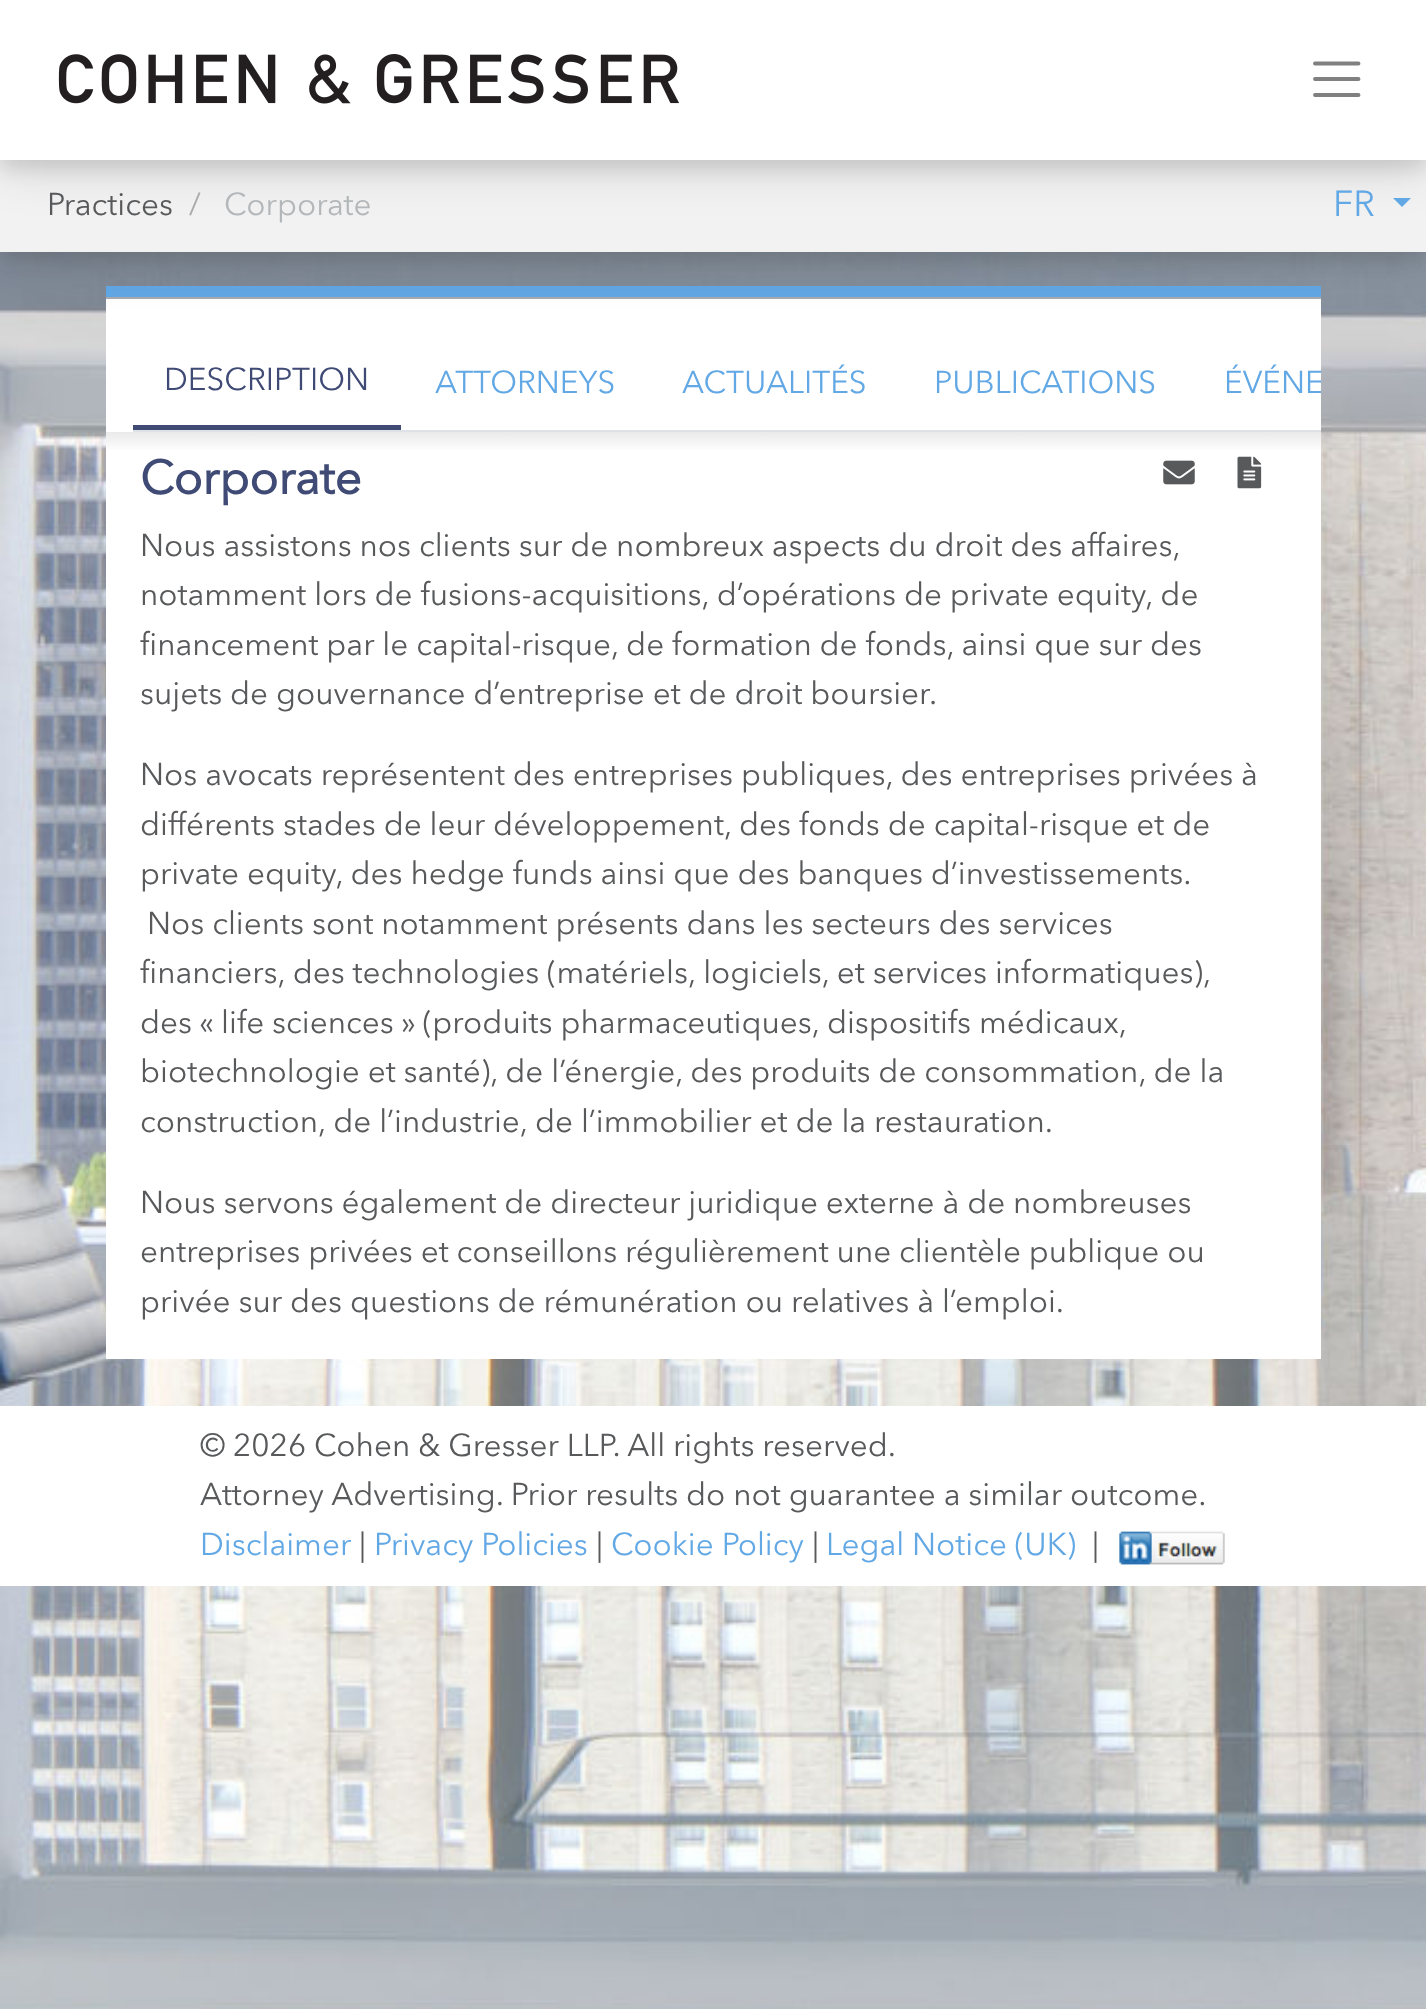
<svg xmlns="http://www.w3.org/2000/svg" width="1426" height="2009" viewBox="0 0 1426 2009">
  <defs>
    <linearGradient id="g1" gradientUnits="userSpaceOnUse" x1="713" y1="432" x2="713" y2="452"><stop offset="0" stop-color="#eaeaea"/><stop offset="1" stop-color="#fff"/></linearGradient>
    <clipPath id="clip1"><path d="M133 308h1188v122H133z"/></clipPath>
  </defs>
  <rect width="100%" height="100%" fill="#fff"/>
  <image x="0" y="252" width="1426" height="1757" href="img/1.png"/>
  <path d="M106 299h1215v1060H106z" fill="#fff"/>
  <path d="M106 286h1215v11H106z" fill="#62a8e5"/>
  <path d="M106 297h1215v2H106z" fill="#aaabad"/>
  <path d="M0 140h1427v126H0z" fill="#0000001a" filter="blur(22.5px)"/>
  <path d="M0 135h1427v126H0z" fill="#0000001a" filter="blur(9px)"/>
  <path d="M0 160h1426v92H0z" fill="#f2f2f2"/>
  <path d="M0 14h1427v159H0z" fill="#0000001a" filter="blur(22.5px)"/>
  <path d="M0 9h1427v160H0z" fill="#0000001a" filter="blur(9px)"/>
  <path d="M0 0h1426v160H0z" fill="#fff"/>
  <image x="58" y="54" width="621" height="50" href="img/2.png"/>
  <path d="M1315 63.5H1358.5M1315 79H1358.5M1315 95H1358.5" fill="none" stroke="#808080" stroke-width="3.9" stroke-linecap="round"/>
  <path d="M1393 198H1411L1402 207Z" fill="#62a8e5"/>
  <path d="M133 430h1188v2H133z" fill="#dee2e6"/>
  <path d="M133 425h268v5H133z" fill="#3f4a75"/>
  <path d="M106 432h1215v18H106z" fill="url(#g1)"/>
  <image x="1163" y="460" width="32" height="25" href="img/3.png"/>
  <image x="1237" y="456" width="25" height="33" href="img/4.png"/>
  <path d="M0 1406h1426v180H0z" fill="#fff"/>
  <image x="1119" y="1531" width="106" height="34" href="img/5.png"/>
  <text x="47" y="215" font-family="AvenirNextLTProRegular" font-size="31.5" fill="#58595b">Practices</text>
  <text x="189" y="215" font-family="AvenirNextLTProRegular" font-size="31.5" fill="#aaabad">/</text>
  <text x="224" y="215" font-family="AvenirNextLTProRegular" font-size="31.5" fill="#b4b7b9">Corporate</text>
  <text x="1333" y="216" font-family="AvenirNextLTProRegular" font-size="36" fill="#62a8e5">FR</text>
  <text x="164" y="390" font-family="AvenirNextLTProRegular" font-size="31.5" fill="#3f4a75">DESCRIPTION</text>
  <g font-family="AvenirNextLTProRegular" font-size="31.5" fill="#62a8e5">
    <text x="435" y="393">ATTORNEYS</text>
    <text x="682" y="393">ACTUALITÉS</text>
    <text x="934" y="393">PUBLICATIONS</text>
  </g>
  <g clip-path="url(#clip1)">
    <text x="1224" y="393" font-family="AvenirNextLTProRegular" font-size="31.5" fill="#62a8e5">ÉVÉNE</text>
  </g>
  <text x="140" y="494" font-family="AvenirNextLTProRegular" font-size="47.25" font-weight="bold" fill="#3f4a75">Corporate</text>
  <g font-family="AvenirNextLTProRegular" font-size="31.5" fill="#58595b">
    <text x="140" y="556">Nous assistons nos clients sur de nombreux aspects du droit des affaires,</text>
    <text x="140" y="605">notamment lors de fusions-acquisitions, d’opérations de private equity, de</text>
    <text x="140" y="655">financement par le capital-risque, de formation de fonds, ainsi que sur des</text>
    <text x="140" y="704">sujets de gouvernance d’entreprise et de droit boursier.</text>
    <text x="140" y="785">Nos avocats représentent des entreprises publiques, des entreprises privées à</text>
    <text x="140" y="835">différents stades de leur développement, des fonds de capital-risque et de</text>
    <text x="140" y="884">private equity, des hedge funds ainsi que des banques d’investissements.</text>
    <text x="147" y="934">Nos clients sont notamment présents dans les secteurs des services</text>
    <text x="140" y="983">financiers, des technologies (matériels, logiciels, et services informatiques),</text>
    <text x="140" y="1033">des « life sciences » (produits pharmaceutiques, dispositifs médicaux,</text>
    <text x="140" y="1082">biotechnologie et santé), de l’énergie, des produits de consommation, de la</text>
    <text x="140" y="1132">construction, de l’industrie, de l’immobilier et de la restauration.</text>
    <text x="140" y="1213">Nous servons également de directeur juridique externe à de nombreuses</text>
    <text x="140" y="1262">entreprises privées et conseillons régulièrement une clientèle publique ou</text>
    <text x="140" y="1312">privée sur des questions de rémunération ou relatives à l’emploi.</text>
    <text x="200" y="1456">© 2026 Cohen &amp; Gresser LLP. All rights reserved.</text>
    <text x="200" y="1505">Attorney Advertising. Prior results do not guarantee a similar outcome.</text>
  </g>
  <text x="200" y="1555" font-family="AvenirNextLTProRegular" font-size="31.5" fill="#62a8e5">Disclaimer</text>
  <text x="359" y="1555" font-family="AvenirNextLTProRegular" font-size="31.5" fill="#58595b">|</text>
  <text x="374" y="1555" font-family="AvenirNextLTProRegular" font-size="31.5" fill="#62a8e5">Privacy Policies</text>
  <text x="596" y="1555" font-family="AvenirNextLTProRegular" font-size="31.5" fill="#58595b">|</text>
  <text x="611" y="1555" font-family="AvenirNextLTProRegular" font-size="31.5" fill="#62a8e5">Cookie Policy</text>
  <text x="812" y="1555" font-family="AvenirNextLTProRegular" font-size="31.5" fill="#58595b">|</text>
  <text x="826" y="1555" font-family="AvenirNextLTProRegular" font-size="31.5" fill="#62a8e5">Legal Notice (UK)</text>
  <text x="1092" y="1555" font-family="AvenirNextLTProRegular" font-size="31.5" fill="#58595b">|</text>
</svg>
